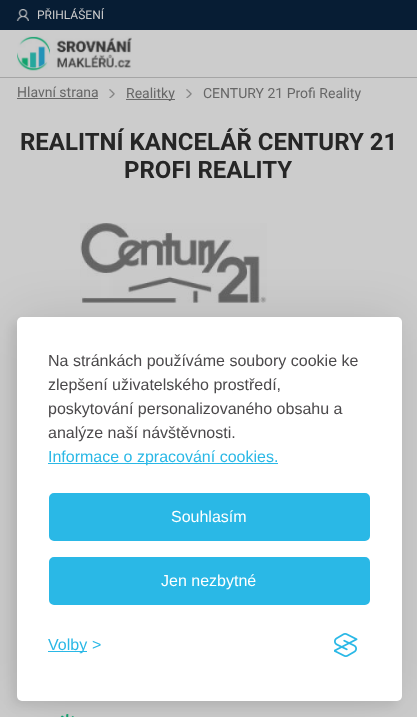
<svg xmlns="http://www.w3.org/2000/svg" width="417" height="717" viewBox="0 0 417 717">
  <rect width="100%" height="100%" fill="#ccc"/>
  <path d="M0 0h417v30H0z" fill="#071d34"/>
  <image x="16" y="9" width="13" height="12" href="img/1.png"/>
  <path d="M0 77h417v1H0z" fill="#a5a5a5"/>
  <image x="17" y="36" width="115" height="35" href="img/2.png"/>
  <path d="M17 98h81v1H17z" fill="#676767"/>
  <image x="109" y="89" width="6" height="9" href="img/3.png"/>
  <path d="M126 99h49v1H126z" fill="#676767"/>
  <image x="186" y="89" width="6" height="9" href="img/4.png"/>
  <image x="80" y="223" width="187" height="80" href="img/5.png"/>
  <image x="60" y="714" width="14" height="3" href="img/6.png"/>
  <rect x="17" y="317" width="385" height="384" rx="5" fill="#0000001a" filter="blur(25px)"/>
  <rect x="12" y="322" width="385" height="384" rx="5" fill="#00000012" filter="blur(5px)"/>
  <rect x="17" y="317" width="385" height="384" rx="5" fill="#fff"/>
  <path d="M48 463h230v1H48z" fill="#2ab8e6"/>
  <rect x="50" y="494" width="319" height="46" rx="4" fill="#2ab8e6" stroke="#2ab8e6" stroke-width="2"/>
  <rect x="50" y="558" width="319" height="46" rx="4" fill="#2ab8e6" stroke="#2ab8e6" stroke-width="2"/>
  <path d="M48 651h39v1H48z" fill="#2ab8e6"/>
  <image x="334" y="633" width="24" height="24" href="img/7.png"/>
  <text x="37" y="19" font-family="Roboto" font-size="12" fill="#ccc">PŘIHLÁŠENÍ</text>
  <g font-family="Roboto" font-size="14" fill="#676767">
    <text x="17" y="97">Hlavní strana</text>
    <text x="126" y="98">Realitky</text>
    <text x="203" y="98">CENTURY 21 Profi Reality</text>
  </g>
  <g font-family="Roboto" font-size="24" font-weight="bold" fill="#262626">
    <text x="20" y="150">REALITNÍ KANCELÁŘ CENTURY 21</text>
    <text x="124" y="178">PROFI REALITY</text>
  </g>
  <g font-family="Liberation Sans" font-size="16" fill="#4b494b">
    <text x="48" y="366">Na stránkách používáme soubory cookie ke</text>
    <text x="48" y="390">zlepšení uživatelského prostředí,</text>
    <text x="48" y="414">poskytování personalizovaného obsahu a</text>
    <text x="48" y="438">analýze naší návštěvnosti.</text>
  </g>
  <text x="48" y="462" font-family="Liberation Sans" font-size="16" fill="#2ab8e6">Informace o zpracování cookies.</text>
  <g font-family="Liberation Sans" font-size="16" fill="#fff">
    <text x="171" y="522">Souhlasím</text>
    <text x="161" y="586">Jen nezbytné</text>
  </g>
  <g font-family="Liberation Sans" font-size="16" fill="#2ab8e6">
    <text x="48" y="650">Volby</text>
    <text x="92" y="650">&gt;</text>
  </g>
</svg>
